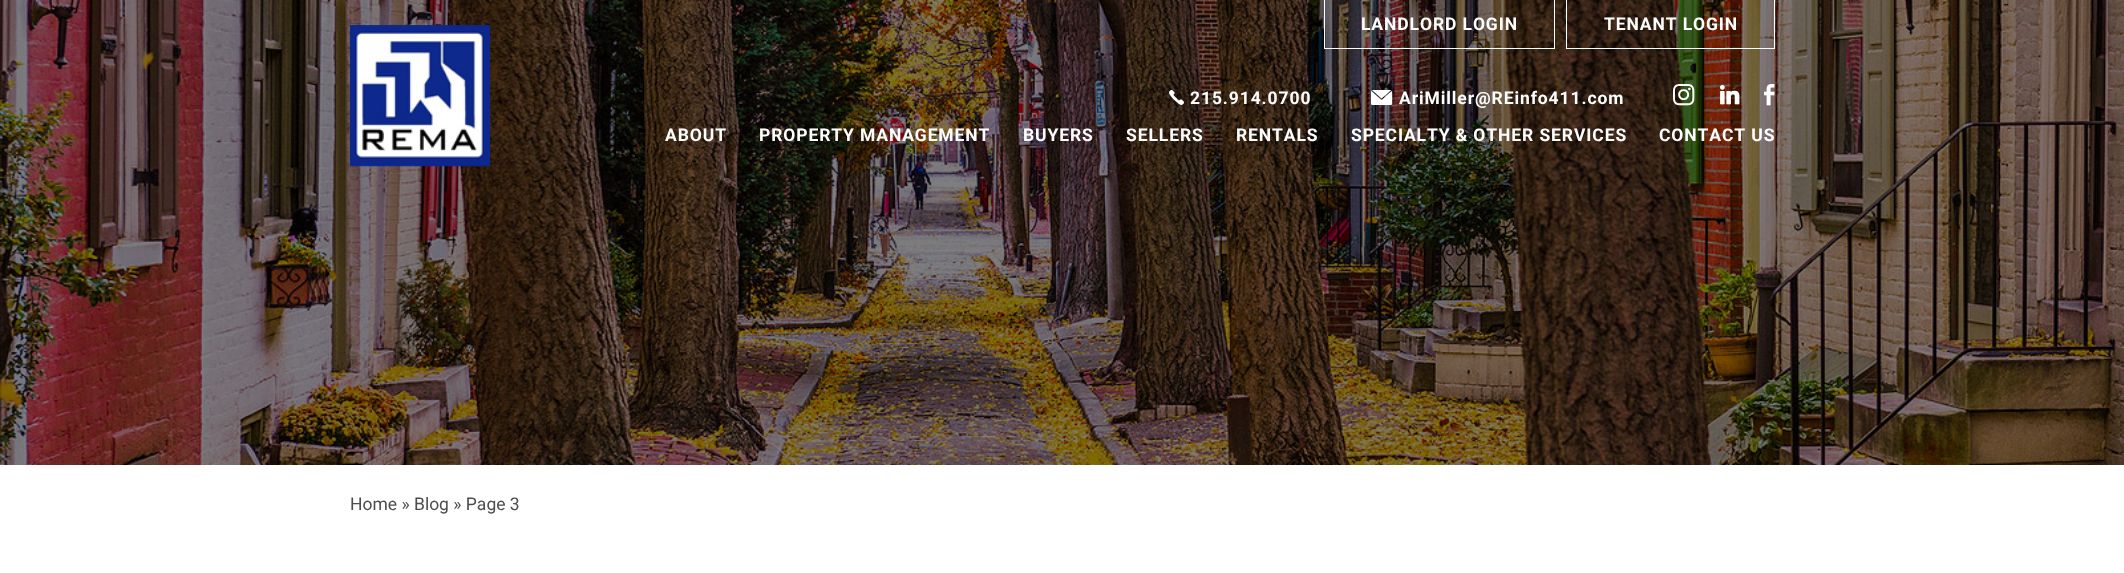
<svg xmlns="http://www.w3.org/2000/svg" width="2124" height="573" viewBox="0 0 2124 573">
  <style>*{font-kerning:none!important;font-variant-ligatures:none!important}</style>
  <rect width="100%" height="100%" fill="#fff"/>
  <image x="0" y="0" width="2124" height="465" href="img/2.png"/>
  <image x="350" y="25" width="140" height="142" href="img/1.png"/>
  <path d="M1554 0h1v49H1554z" fill="#fff"/>
  <path d="M1324 48h231v1H1324z" fill="#fff"/>
  <path d="M1324 0h1v49H1324z" fill="#fff"/>
  <path d="M1774 0h1v49H1774z" fill="#fff"/>
  <path d="M1566 48h209v1H1566z" fill="#fff"/>
  <path d="M1566 0h1v49H1566z" fill="#fff"/>
  <g font-family="Roboto" font-size="17.5" font-weight="bold" letter-spacing="0.9" fill="#fff">
    <text x="1361" y="30">LANDLORD LOGIN</text>
    <text x="1604" y="30">TENANT LOGIN</text>
  </g>
  <text x="1169" y="104" font-family="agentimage" font-size="15" letter-spacing="0.9" fill="#fff">򰁩</text>
  <text x="1190" y="104" font-family="Roboto" font-size="17.5" font-weight="bold" letter-spacing="0.9" fill="#fff">215.914.0700</text>
  <text x="1371" y="104" font-family="agentimage" font-size="15" letter-spacing="0.9" fill="#fff">򰄡</text>
  <text x="1399" y="104" font-family="Roboto" font-size="17.5" font-weight="bold" letter-spacing="0.9" fill="#fff">AriMiller@REinfo411.com</text>
  <g font-family="agentimage" font-size="26" fill="#fff">
    <text x="1673" y="106">򰄆</text>
    <text x="1720" y="106">򰄅</text>
    <text x="1764" y="106">򰄔</text>
  </g>
  <g font-family="Roboto" font-size="17.5" font-weight="bold" letter-spacing="0.9" fill="#fff">
    <text x="665" y="141">ABOUT</text>
    <text x="759" y="141">PROPERTY MANAGEMENT</text>
    <text x="1023" y="141">BUYERS</text>
    <text x="1126" y="141">SELLERS</text>
    <text x="1236" y="141">RENTALS</text>
    <text x="1351" y="141">SPECIALTY &amp; OTHER SERVICES</text>
    <text x="1659" y="141">CONTACT US</text>
  </g>
  <text x="350" y="510" font-family="Roboto" font-size="17.5" fill="#4d4d4d">Home » Blog » Page 3</text>
</svg>
